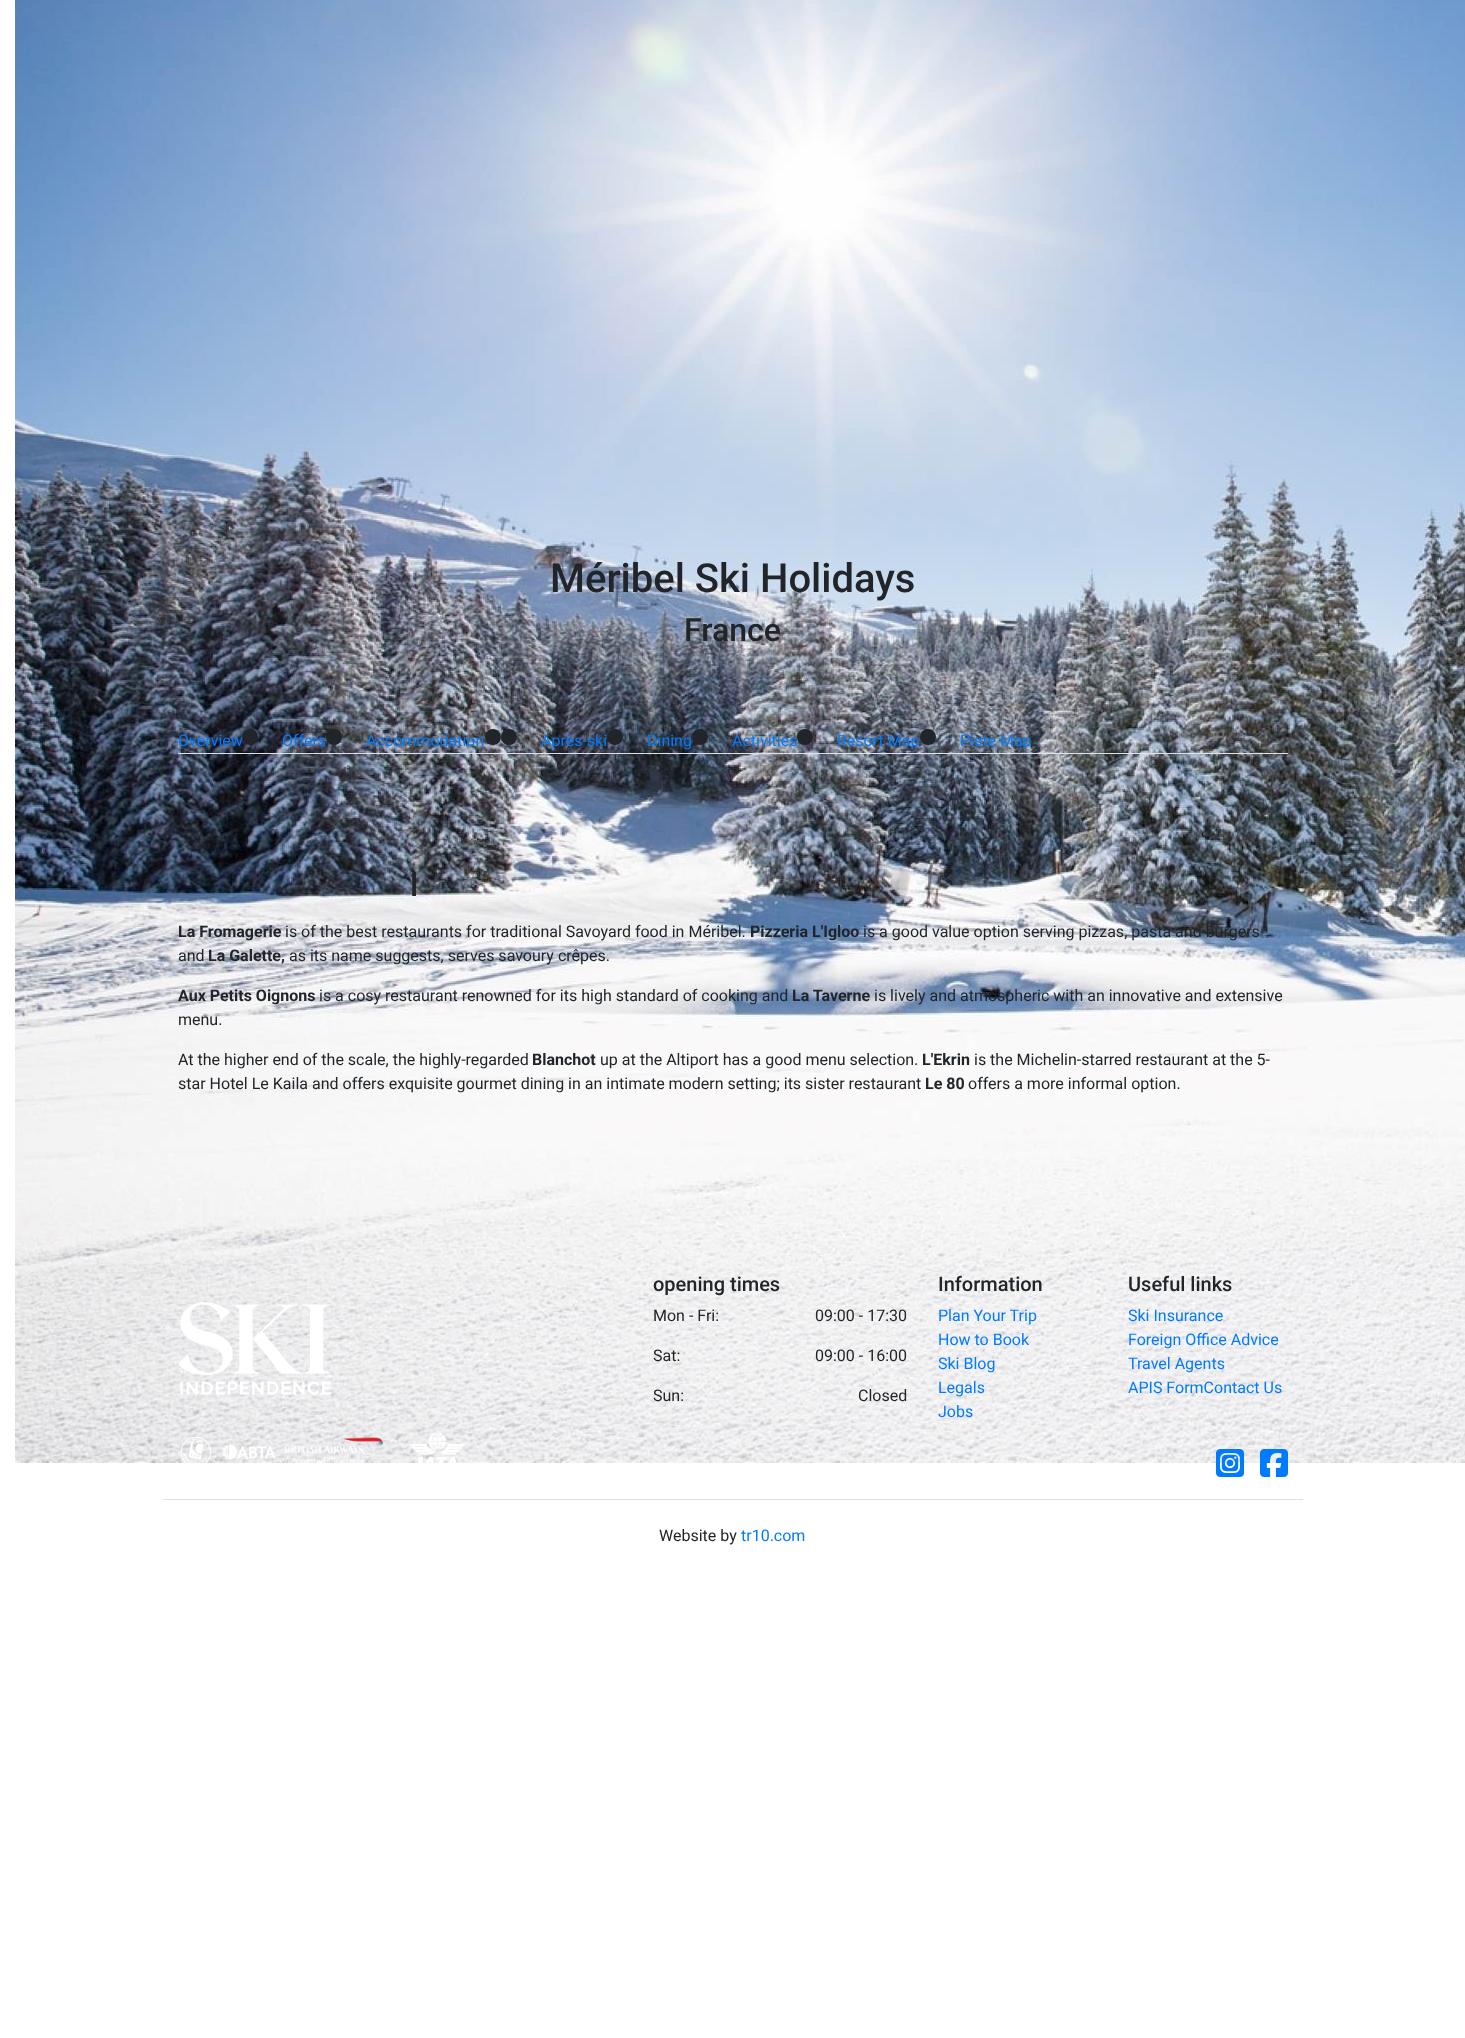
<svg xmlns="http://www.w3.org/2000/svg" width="1465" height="2038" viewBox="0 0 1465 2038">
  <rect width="100%" height="100%" fill="#fff"/>
  <image x="15" y="0" width="1450" height="1463" href="img/1.png"/>
  <path d="M178 753h1110v1H178z" fill="#dee2e6"/>
  <path d="M250 745C260.5 745 260.5 729 250 729C239.5 729 239.5 745 250 745Z" fill="#212529"/>
  <path d="M334 745C344.5 745 344.5 729 334 729C323.5 729 323.5 745 334 745Z" fill="#212529"/>
  <path d="M493 745C503.5 745 503.5 729 493 729C482.5 729 482.5 745 493 745ZM509 745C519.5 745 519.5 729 509 729C498.5 729 498.5 745 509 745Z" fill="#212529"/>
  <path d="M615 745C625.5 745 625.5 729 615 729C604.5 729 604.5 745 615 745Z" fill="#212529"/>
  <path d="M700 745C710.5 745 710.5 729 700 729C689.5 729 689.5 745 700 745Z" fill="#212529"/>
  <path d="M805 745C815.5 745 815.5 729 805 729C794.5 729 794.5 745 805 745Z" fill="#212529"/>
  <path d="M928 745C938.5 745 938.5 729 928 729C917.5 729 917.5 745 928 745Z" fill="#212529"/>
  <image x="178" y="1302" width="153" height="93" href="img/2.png"/>
  <image x="180" y="1436" width="96" height="27" href="img/3.png"/>
  <image x="284" y="1437" width="99" height="26" href="img/4.png"/>
  <image x="409" y="1432" width="57" height="31" href="img/5.png"/>
  <image x="1216" y="1449" width="28" height="28" href="img/6.png"/>
  <image x="1260" y="1449" width="28" height="28" href="img/7.png"/>
  <path d="M163 1499h1140v1H163z" fill="#dee2e6"/>
  <text x="550" y="592" font-family="Roboto" font-size="40" font-weight="500" fill="#212529">Méribel Ski Holidays</text>
  <text x="684" y="641" font-family="Roboto" font-size="32" font-weight="500" fill="#212529">France</text>
  <g font-family="Roboto" font-size="16" fill="#007bff">
    <text x="178" y="746">Overview</text>
    <text x="282" y="746">Offers</text>
    <text x="366" y="746">Accommodation</text>
    <text x="541" y="746">Après-ski</text>
    <text x="647" y="746">Dining</text>
    <text x="732" y="746">Activities</text>
    <text x="837" y="746">Resort Map</text>
    <text x="960" y="746">Piste Map</text>
  </g>
  <text x="410" y="896" font-family="Roboto" font-size="32" font-weight="500" fill="#212529">l</text>
  <text x="178" y="937" font-family="Roboto" font-size="16" font-weight="bold" fill="#212529">La Fromagerie</text>
  <text x="285" y="937" font-family="Roboto" font-size="16" fill="#212529">is of the best restaurants for traditional Savoyard food in Méribel.</text>
  <text x="750" y="937" font-family="Roboto" font-size="16" font-weight="bold" fill="#212529">Pizzeria L'Igloo</text>
  <g font-family="Roboto" font-size="16" fill="#212529">
    <text x="863" y="937">is a good value option serving pizzas, pasta and burgers</text>
    <text x="178" y="961">and</text>
  </g>
  <text x="208" y="961" font-family="Roboto" font-size="16" font-weight="bold" fill="#212529">La Galette,</text>
  <text x="289" y="961" font-family="Roboto" font-size="16" fill="#212529">as its name suggests, serves savoury crêpes.</text>
  <text x="178" y="1001" font-family="Roboto" font-size="16" font-weight="bold" fill="#212529">Aux Petits Oignons</text>
  <text x="319" y="1001" font-family="Roboto" font-size="16" fill="#212529">is a cosy restaurant renowned for its high standard of cooking and</text>
  <text x="792" y="1001" font-family="Roboto" font-size="16" font-weight="bold" fill="#212529">La Taverne</text>
  <g font-family="Roboto" font-size="16" fill="#212529">
    <text x="874" y="1001">is lively and atmospheric with an innovative and extensive</text>
    <text x="178" y="1025">menu.</text>
    <text x="178" y="1065">At the higher end of the scale, the highly-regarded</text>
  </g>
  <text x="532" y="1065" font-family="Roboto" font-size="16" font-weight="bold" fill="#212529">Blanchot</text>
  <text x="600" y="1065" font-family="Roboto" font-size="16" fill="#212529">up at the Altiport has a good menu selection.</text>
  <text x="922" y="1065" font-family="Roboto" font-size="16" font-weight="bold" fill="#212529">L'Ekrin</text>
  <g font-family="Roboto" font-size="16" fill="#212529">
    <text x="974" y="1065">is the Michelin-starred restaurant at the 5-</text>
    <text x="178" y="1089">star Hotel Le Kaila and offers exquisite gourmet dining in an intimate modern setting; its sister restaurant</text>
  </g>
  <text x="925" y="1089" font-family="Roboto" font-size="16" font-weight="bold" fill="#212529">Le 80</text>
  <text x="968" y="1089" font-family="Roboto" font-size="16" fill="#212529">offers a more informal option.</text>
  <text x="653" y="1291" font-family="Roboto" font-size="20" font-weight="500" fill="#212529">opening times</text>
  <g font-family="Roboto" font-size="16" fill="#212529">
    <text x="653" y="1321">Mon - Fri:</text>
    <text x="815" y="1321">09:00 - 17:30</text>
    <text x="653" y="1361">Sat:</text>
    <text x="815" y="1361">09:00 - 16:00</text>
    <text x="653" y="1401">Sun:</text>
    <text x="858" y="1401">Closed</text>
  </g>
  <text x="938" y="1291" font-family="Roboto" font-size="20" font-weight="500" fill="#212529">Information</text>
  <g font-family="Roboto" font-size="16" fill="#007bff">
    <text x="938" y="1321">Plan Your Trip</text>
    <text x="938" y="1345">How to Book</text>
    <text x="938" y="1369">Ski Blog</text>
    <text x="938" y="1393">Legals</text>
    <text x="938" y="1417">Jobs</text>
  </g>
  <text x="1128" y="1291" font-family="Roboto" font-size="20" font-weight="500" fill="#212529">Useful links</text>
  <g font-family="Roboto" font-size="16" fill="#007bff">
    <text x="1128" y="1321">Ski Insurance</text>
    <text x="1128" y="1345">Foreign Office Advice</text>
    <text x="1128" y="1369">Travel Agents</text>
    <text x="1128" y="1393">APIS FormContact Us</text>
  </g>
  <text x="659" y="1541" font-family="Roboto" font-size="16" fill="#212529">Website by</text>
  <text x="741" y="1541" font-family="Roboto" font-size="16" fill="#007bff">tr10.com</text>
</svg>
